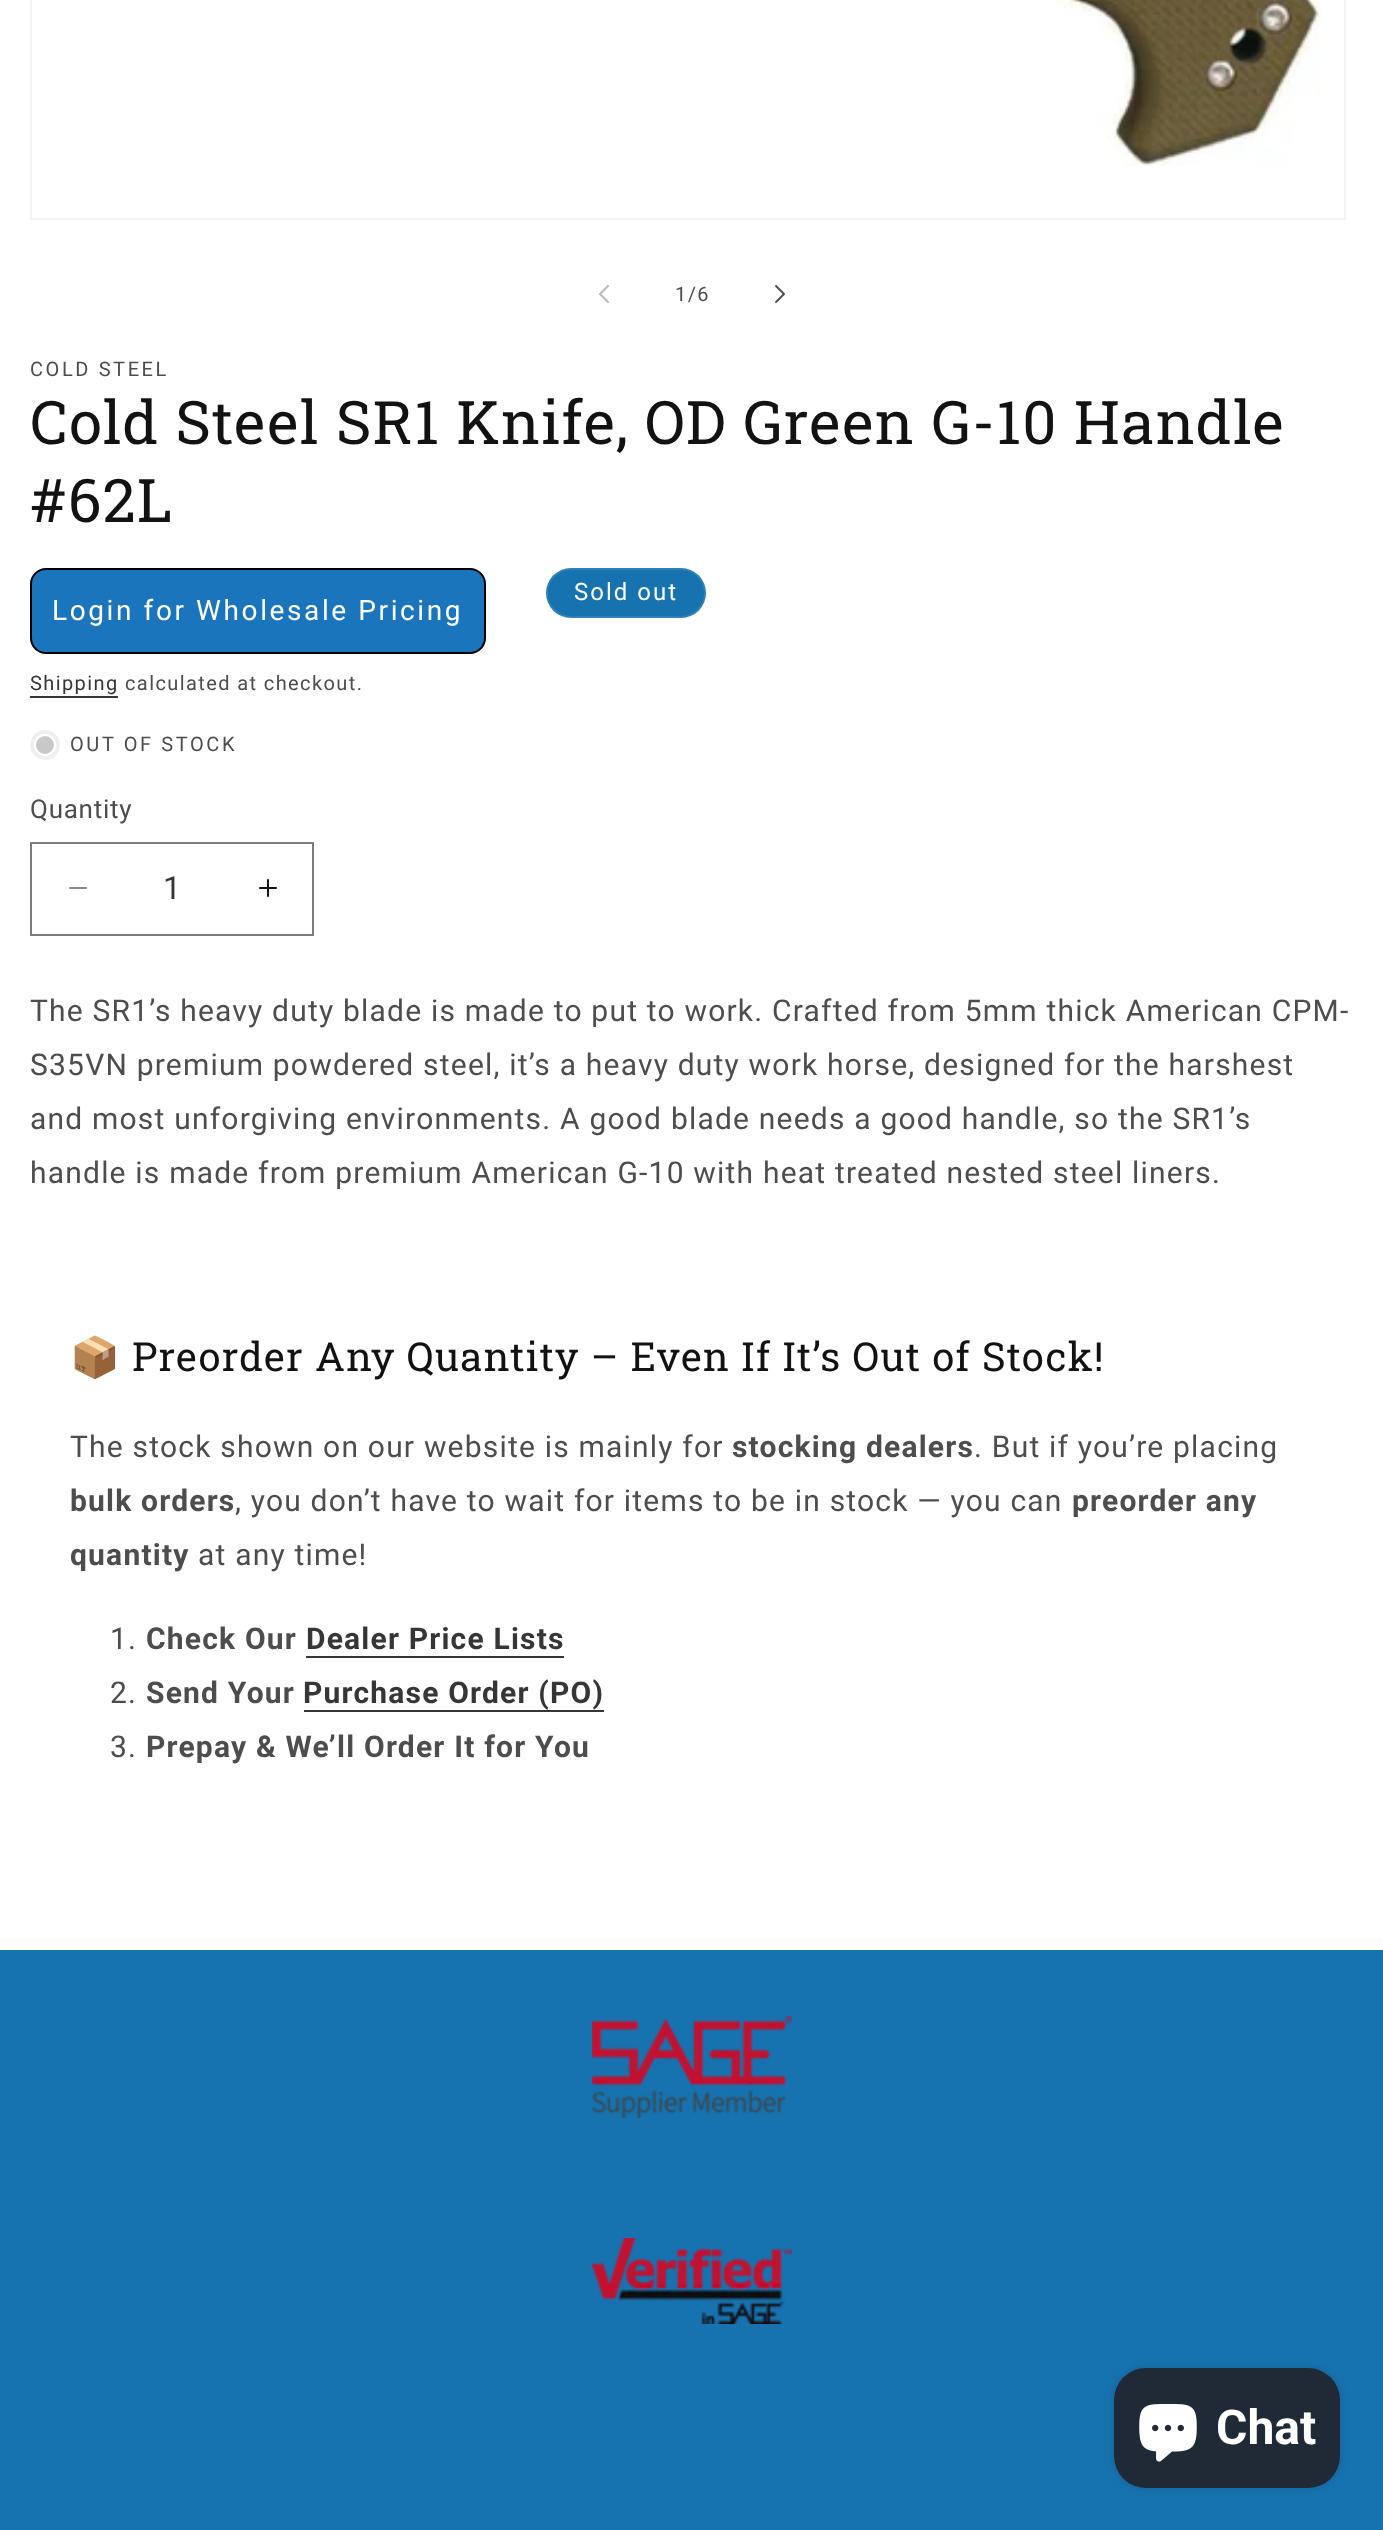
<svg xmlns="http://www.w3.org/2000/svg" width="1383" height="2530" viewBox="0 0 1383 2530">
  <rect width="100%" height="100%" fill="#fff"/>
  <path d="M31 -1h1314v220H31z" fill="none" stroke="#f3f3f3" stroke-width="2"/>
  <image x="1055" y="0" width="266" height="166" href="img/1.png"/>
  <image x="599" y="285" width="10" height="18" href="img/2.png"/>
  <image x="775" y="285" width="10" height="18" href="img/3.png"/>
  <rect x="546" y="568" width="160" height="50" rx="25" fill="#1773b0"/>
  <rect x="547" y="569" width="158" height="48" rx="24" fill="none" stroke="#ffffff1a" stroke-width="2"/>
  <rect x="31" y="569" width="454" height="84" rx="15" fill="#1b75bc" stroke="#000" stroke-width="2"/>
  <path d="M30 696h88v2H30z" fill="#363636"/>
  <circle cx="45" cy="745" r="15" fill="#efefef"/>
  <circle cx="45" cy="745" r="10" fill="#c8c8c8" stroke="#fff" stroke-width="2"/>
  <image x="69" y="887" width="18" height="2" href="img/4.png"/>
  <image x="259" y="879" width="18" height="18" href="img/5.png"/>
  <path d="M31 843h282v92H31z" fill="none" stroke="#7d7d7d" stroke-width="2"/>
  <path d="M306 1656h258v2H306z" fill="#363636"/>
  <path d="M304 1710h300v2H304z" fill="#363636"/>
  <path d="M0 1950h1383v580H0z" fill="#1773b0"/>
  <image x="592" y="2016" width="200" height="102" href="img/6.png"/>
  <image x="592" y="2238" width="200" height="86" href="img/7.png"/>
  <rect x="1114" y="2368" width="226" height="120" rx="32" fill="#00000026" filter="blur(5px)"/>
  <rect x="1114" y="2368" width="226" height="120" rx="32" fill="#202a36"/>
  <image x="1139" y="2404" width="58" height="58" href="img/8.png"/>
  <text x="675" y="301" font-family="Roboto" font-size="20" letter-spacing="1.4" fill="#4d4d4d">1/6</text>
  <text x="30" y="376" font-family="Roboto" font-size="20" letter-spacing="2.6" fill="#4d4d4d">COLD STEEL</text>
  <g font-family="Roboto Slab" font-size="60" letter-spacing="1.2" fill="#121212">
    <text x="30" y="444">Cold Steel SR1 Knife, OD Green G-10 Handle</text>
    <text x="30" y="522">#62L</text>
  </g>
  <text x="574" y="600" font-family="Roboto" font-size="24" letter-spacing="2" fill="#fff">Sold out</text>
  <text x="52" y="620" font-family="Roboto" font-size="28" letter-spacing="2.6" fill="#fff">Login for Wholesale Pricing</text>
  <text x="30" y="690" font-family="Roboto" font-size="20" letter-spacing="1.4" fill="#363636">Shipping</text>
  <text x="125" y="690" font-family="Roboto" font-size="20" letter-spacing="1.4" fill="#4d4d4d">calculated at checkout.</text>
  <text x="70" y="751" font-family="Roboto" font-size="20" letter-spacing="2.6" fill="#4d4d4d">OUT OF STOCK</text>
  <text x="30" y="818" font-family="Roboto" font-size="26" letter-spacing="0.75" fill="#4d4d4d">Quantity</text>
  <text x="163" y="899" font-family="Roboto" font-size="32" fill="#363636">1</text>
  <g font-family="Roboto" font-size="30" letter-spacing="1.2" fill="#4d4d4d">
    <text x="30" y="1021">The SR1’s heavy duty blade is made to put to work. Crafted from 5mm thick American CPM-</text>
    <text x="30" y="1075">S35VN premium powdered steel, it’s a heavy duty work horse, designed for the harshest</text>
    <text x="30" y="1129">and most unforgiving environments. A good blade needs a good handle, so the SR1’s</text>
    <text x="30" y="1183">handle is made from premium American G-10 with heat treated nested steel liners.</text>
  </g>
  <text x="70" y="1371" font-family="Noto Color Emoji" font-size="40" letter-spacing="1.2" fill="#121212">📦</text>
  <text x="132" y="1371" font-family="Roboto Slab" font-size="40" letter-spacing="1.2" fill="#121212">Preorder Any Quantity – Even If It’s Out of Stock!</text>
  <text x="70" y="1457" font-family="Roboto" font-size="30" letter-spacing="1.2" fill="#4d4d4d">The stock shown on our website is mainly for</text>
  <text x="732" y="1457" font-family="Roboto" font-size="30" font-weight="bold" letter-spacing="1.2" fill="#4d4d4d">stocking dealers</text>
  <text x="974" y="1457" font-family="Roboto" font-size="30" letter-spacing="1.2" fill="#4d4d4d">. But if you’re placing</text>
  <text x="70" y="1511" font-family="Roboto" font-size="30" font-weight="bold" letter-spacing="1.2" fill="#4d4d4d">bulk orders</text>
  <text x="235" y="1511" font-family="Roboto" font-size="30" letter-spacing="1.2" fill="#4d4d4d">, you don’t have to wait for items to be in stock — you can</text>
  <g font-family="Roboto" font-size="30" font-weight="bold" letter-spacing="1.2" fill="#4d4d4d">
    <text x="1072" y="1511">preorder any</text>
    <text x="70" y="1565">quantity</text>
  </g>
  <g font-family="Roboto" font-size="30" letter-spacing="1.2" fill="#4d4d4d">
    <text x="198" y="1565">at any time!</text>
    <text x="110" y="1649">1.</text>
  </g>
  <text x="146" y="1649" font-family="Roboto" font-size="30" font-weight="bold" letter-spacing="1.2" fill="#4d4d4d">Check Our</text>
  <text x="306" y="1649" font-family="Roboto" font-size="30" font-weight="bold" letter-spacing="1.2" fill="#363636">Dealer Price Lists</text>
  <text x="110" y="1703" font-family="Roboto" font-size="30" letter-spacing="1.2" fill="#4d4d4d">2.</text>
  <text x="146" y="1703" font-family="Roboto" font-size="30" font-weight="bold" letter-spacing="1.2" fill="#4d4d4d">Send Your</text>
  <text x="303" y="1703" font-family="Roboto" font-size="30" font-weight="bold" letter-spacing="1.2" fill="#363636">Purchase Order (PO)</text>
  <text x="110" y="1757" font-family="Roboto" font-size="30" letter-spacing="1.2" fill="#4d4d4d">3.</text>
  <text x="146" y="1757" font-family="Roboto" font-size="30" font-weight="bold" letter-spacing="1.2" fill="#4d4d4d">Prepay &amp; We’ll Order It for You</text>
  <text x="1216" y="2444" font-family="Roboto" font-size="48" font-weight="bold" fill="#fff">Chat</text>
</svg>
